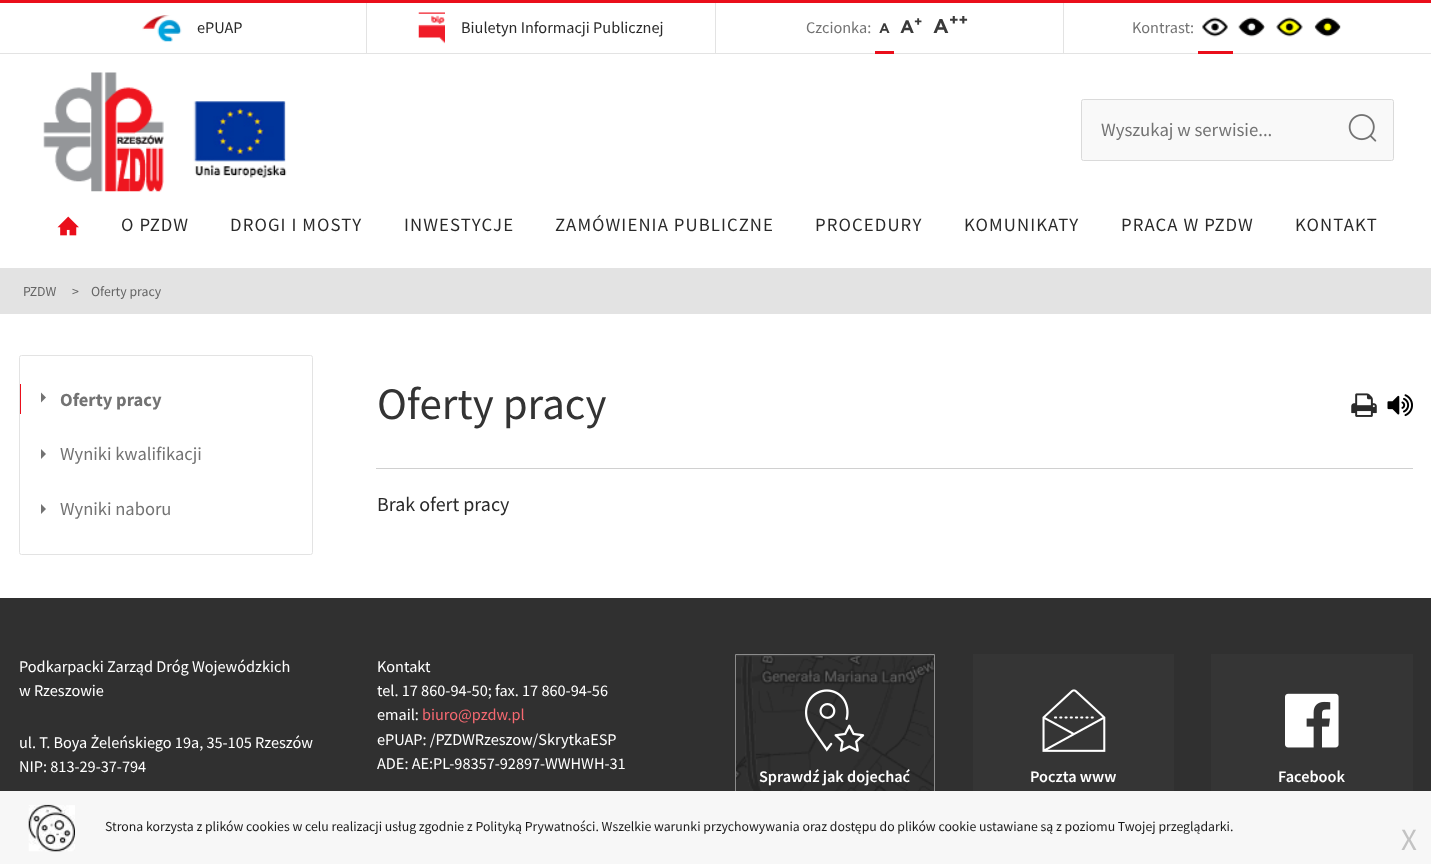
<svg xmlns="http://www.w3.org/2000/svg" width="1431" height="864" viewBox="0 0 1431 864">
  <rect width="100%" height="100%" fill="#fff"/>
  <path d="M0 0h1431v3H0z" fill="#ea0e1b"/>
  <path d="M0 53h1431v1H0z" fill="#e3e3e3"/>
  <path d="M366 3h1v50H366z" fill="#e3e3e3"/>
  <image x="142" y="15" width="40" height="27" href="img/1.png"/>
  <path d="M715 3h1v50H715z" fill="#e3e3e3"/>
  <image x="418" y="12" width="27" height="32" href="img/2.png"/>
  <path d="M1063 3h1v50H1063z" fill="#e3e3e3"/>
  <path d="M875 51h19v3H875z" fill="#ea0e1b"/>
  <image x="1202" y="17" width="26" height="20" href="img/3.png"/>
  <image x="1238" y="17" width="27" height="20" href="img/4.png"/>
  <image x="1276" y="17" width="27" height="20" href="img/5.png"/>
  <image x="1314" y="17" width="27" height="20" href="img/6.png"/>
  <path d="M1198 51h35v3H1198z" fill="#ea0e1b"/>
  <image x="43" y="72" width="121" height="120" href="img/7.png"/>
  <image x="193" y="101" width="94" height="77" href="img/8.png"/>
  <rect x="1081.5" y="99.5" width="312" height="61" rx="2" fill="#f9f9f9" stroke="#dadada"/>
  <image x="1348" y="114" width="29" height="28" href="img/9.png"/>
  <image x="57" y="216" width="22" height="20" href="img/10.png"/>
  <path d="M0 268h1431v46H0z" fill="#e3e3e3"/>
  <rect x="19.5" y="355.5" width="293" height="199" rx="2" fill="none" stroke="#e3e3e3"/>
  <path d="M20 384h1v30H20z" fill="#ea0e1b"/>
  <path d="M41 402.5V392.5L46 397.5Z" fill="#737373"/>
  <path d="M41 459V449L46 454Z" fill="#737373"/>
  <path d="M41 514V504L46 509Z" fill="#737373"/>
  <image x="1351" y="393" width="26" height="24" href="img/11.png"/>
  <image x="1387" y="394" width="26" height="23" href="img/12.png"/>
  <path d="M376 468h1037v1H376z" fill="#d0d0d0"/>
  <path d="M0 598h1431v193H0z" fill="#303030"/>
  <image x="735" y="653" width="200" height="138" href="img/13.png"/>
  <path d="M735.5 654.5h199v170H735.5z" fill="none" stroke="#8c8c8c"/>
  <image x="805" y="689" width="60" height="63" href="img/14.png"/>
  <path d="M973 654h201v137H973z" fill="#353535"/>
  <image x="1042" y="689" width="64" height="63" href="img/15.png"/>
  <path d="M1211 654h202v137H1211z" fill="#353535"/>
  <image x="1285" y="693" width="54" height="55" href="img/16.png"/>
  <path d="M0 791h1431v73H0z" fill="#f7f7f7"/>
  <image x="28" y="804" width="47" height="48" href="img/17.png"/>
  <g font-family="Source Sans Pro" font-size="16.25" fill="#2a2a2a">
    <text x="197" y="33">ePUAP</text>
    <text x="461" y="33">Biuletyn Informacji Publicznej</text>
  </g>
  <text x="806" y="33" font-family="Source Sans Pro" font-size="16.25" fill="#737373">Czcionka:</text>
  <text x="879" y="33" font-family="Gotham" font-size="13.75" font-weight="bold" fill="#3a3a3a">A</text>
  <text x="900" y="33" font-family="Gotham" font-size="18" font-weight="bold" fill="#3a3a3a">A</text>
  <text x="914" y="26" font-family="Gotham" font-size="13" font-weight="bold" fill="#3a3a3a">+</text>
  <text x="933" y="33" font-family="Gotham" font-size="20" font-weight="bold" fill="#3a3a3a">A</text>
  <text x="949" y="25" font-family="Gotham" font-size="15" font-weight="bold" fill="#3a3a3a">++</text>
  <text x="1132" y="33" font-family="Source Sans Pro" font-size="16.25" fill="#737373">Kontrast:</text>
  <text x="1101" y="136" font-family="Source Sans Pro" font-size="18.75" fill="#737373">Wyszukaj w serwisie...</text>
  <g font-family="Source Sans Pro" font-size="18.75" letter-spacing="1.1" fill="#2a2a2a">
    <text x="121" y="231">O PZDW</text>
    <text x="230" y="231">DROGI I MOSTY</text>
    <text x="404" y="231">INWESTYCJE</text>
    <text x="555" y="231">ZAMÓWIENIA PUBLICZNE</text>
    <text x="815" y="231">PROCEDURY</text>
    <text x="964" y="231">KOMUNIKATY</text>
    <text x="1121" y="231">PRACA W PZDW</text>
    <text x="1295" y="231">KONTAKT</text>
  </g>
  <g font-family="Source Sans Pro" font-size="13.75" fill="#656565">
    <text x="23" y="296">PZDW</text>
    <text x="72" y="296">&gt;</text>
    <text x="91" y="296">Oferty pracy</text>
  </g>
  <text x="60" y="406" font-family="Source Sans Pro" font-size="18.5" font-weight="bold" fill="#737373">Oferty pracy</text>
  <g font-family="Source Sans Pro" font-size="18.5" fill="#737373">
    <text x="60" y="460">Wyniki kwalifikacji</text>
    <text x="60" y="515">Wyniki naboru</text>
  </g>
  <text x="377" y="419" font-family="Source Sans Pro" font-size="45" fill="#333">Oferty pracy</text>
  <text x="377" y="511" font-family="Source Sans Pro" font-size="20" fill="#2a2a2a">Brak ofert pracy</text>
  <g font-family="Source Sans Pro" font-size="16.25" fill="#fff">
    <text x="19" y="672">Podkarpacki Zarząd Dróg Wojewódzkich</text>
    <text x="19" y="696">w Rzeszowie</text>
    <text x="19" y="748">ul. T. Boya Żeleńskiego 19a, 35-105 Rzeszów</text>
    <text x="19" y="772">NIP: 813-29-37-794</text>
    <text x="377" y="672">Kontakt</text>
    <text x="377" y="696">tel. 17 860-94-50; fax. 17 860-94-56</text>
    <text x="377" y="720">email:</text>
  </g>
  <text x="422" y="720" font-family="Source Sans Pro" font-size="16.25" fill="#f66971">biuro@pzdw.pl</text>
  <g font-family="Source Sans Pro" font-size="16.25" fill="#fff">
    <text x="377" y="745">ePUAP: /PZDWRzeszow/SkrytkaESP</text>
    <text x="377" y="769">ADE: AE:PL-98357-92897-WWHWH-31</text>
  </g>
  <g font-family="Source Sans Pro" font-size="16.25" font-weight="600" fill="#fff">
    <text x="759" y="782">Sprawdź jak dojechać</text>
    <text x="1030" y="782">Poczta www</text>
    <text x="1278" y="782">Facebook</text>
  </g>
  <text x="105" y="831" font-family="Source Sans Pro" font-size="13.75" fill="#1a1a1a">Strona korzysta z plików cookies w celu realizacji usług zgodnie z Polityką Prywatności. Wszelkie warunki przychowywania oraz dostępu do plików cookie ustawiane są z poziomu Twojej przeglądarki.</text>
  <text x="1401" y="850" font-family="Source Sans Pro" font-size="31" fill="#c3c3c3">X</text>
</svg>
